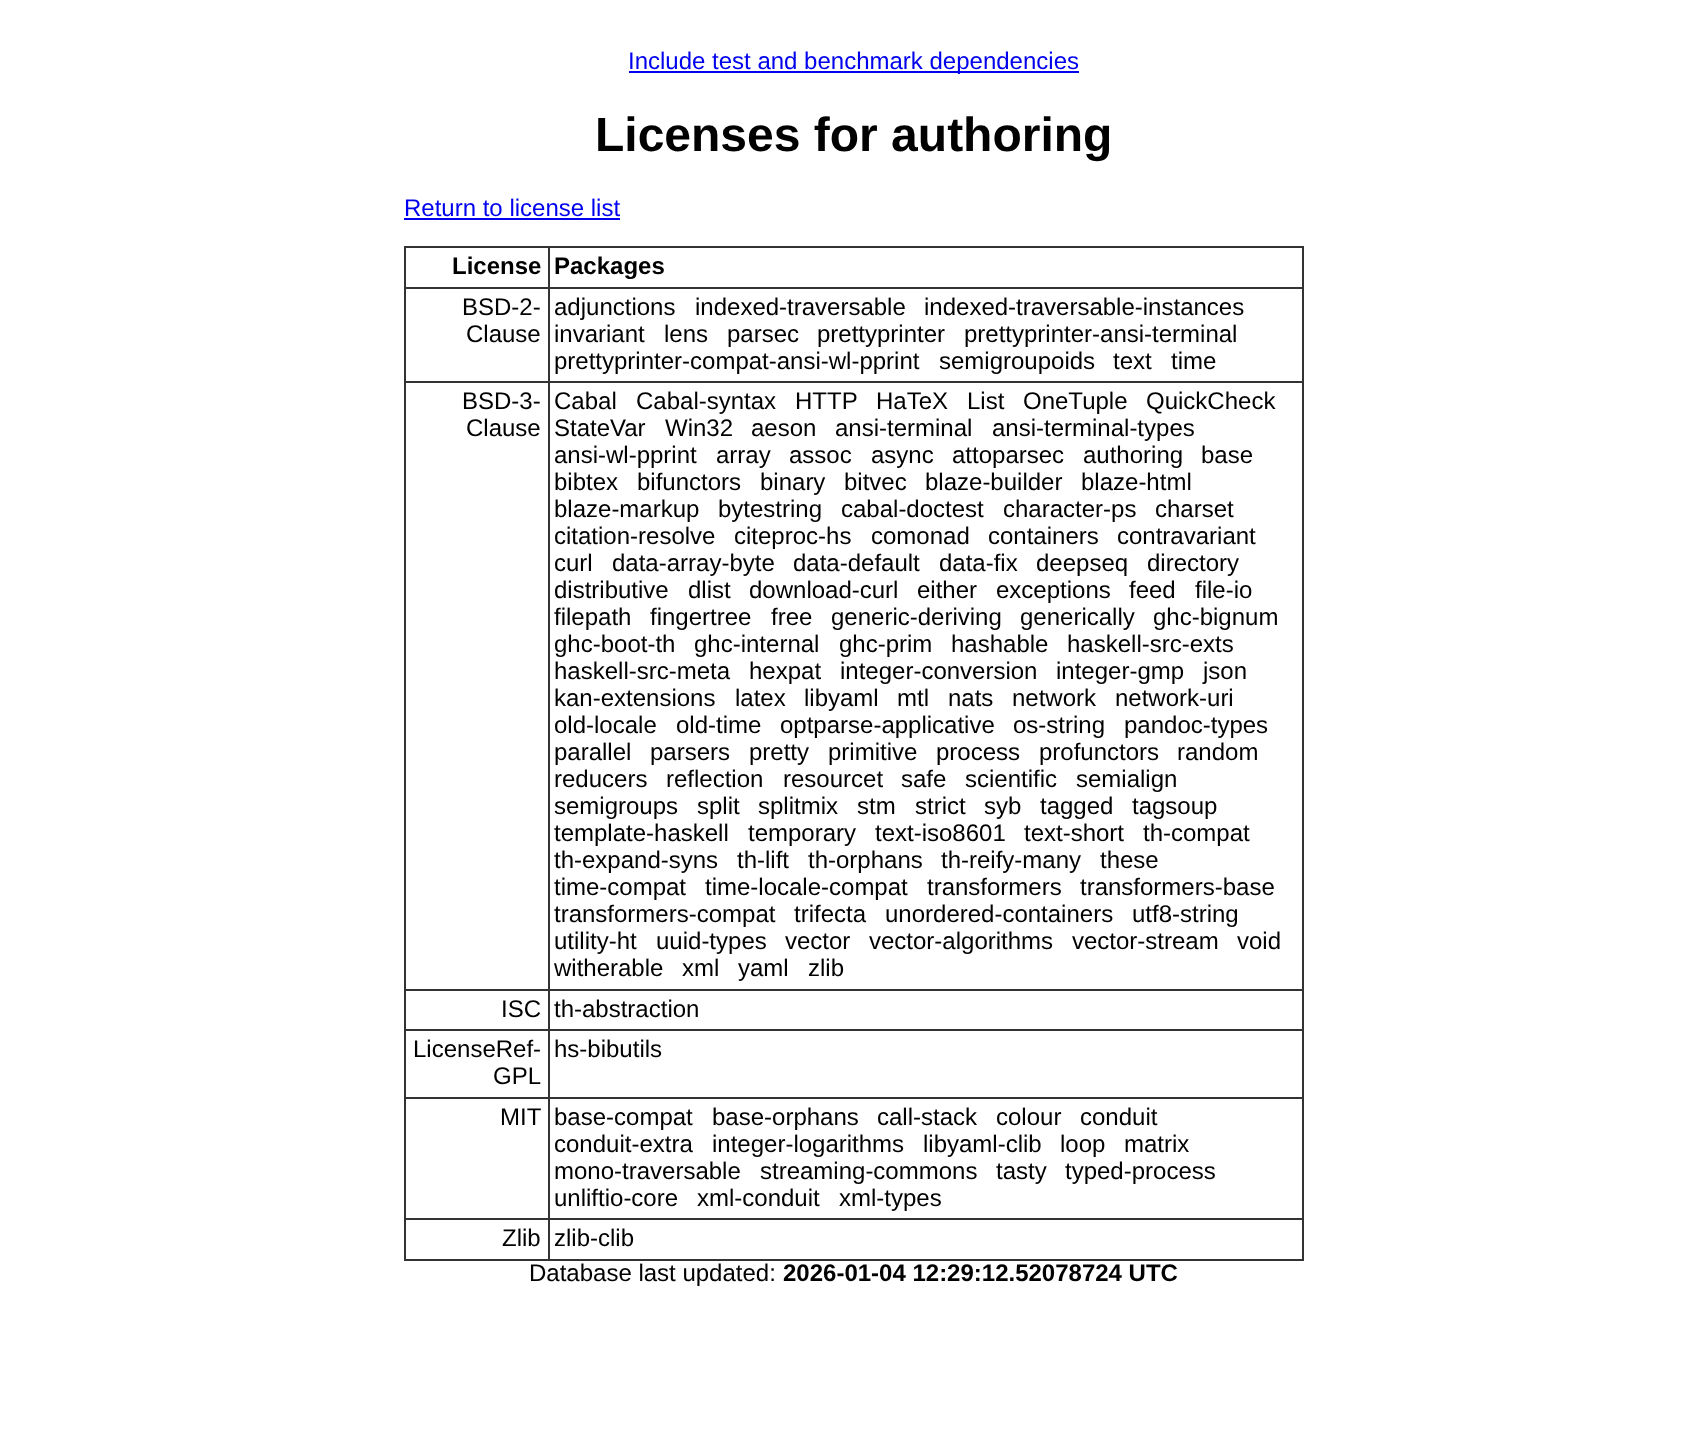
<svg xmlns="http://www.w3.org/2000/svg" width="1706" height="1429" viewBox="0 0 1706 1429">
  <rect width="100%" height="100%" fill="#fff"/>
  <path d="M629 71h450v2H629z" fill="#00e"/>
  <path d="M404 218h216v2H404z" fill="#00e"/>
  <path d="M548 246h756v2H548z" fill="#333"/>
  <path d="M548 287h756v2H548z" fill="#333"/>
  <path d="M548 381h756v2H548z" fill="#333"/>
  <path d="M548 989h756v2H548z" fill="#333"/>
  <path d="M548 1029h756v2H548z" fill="#333"/>
  <path d="M548 1097h756v2H548z" fill="#333"/>
  <path d="M548 1218h756v2H548z" fill="#333"/>
  <path d="M1302 1218h2v42H1302z" fill="#333"/>
  <path d="M548 1259h756v2H548z" fill="#333"/>
  <path d="M548 1218h2v42H548z" fill="#333"/>
  <path d="M404 1218h145v2H404z" fill="#333"/>
  <path d="M548 1097h2v123H548z" fill="#333"/>
  <path d="M404 1097h145v2H404z" fill="#333"/>
  <path d="M548 1029h2v69H548z" fill="#333"/>
  <path d="M404 1029h145v2H404z" fill="#333"/>
  <path d="M548 989h2v42H548z" fill="#333"/>
  <path d="M404 989h145v2H404z" fill="#333"/>
  <path d="M548 381h2v609H548z" fill="#333"/>
  <path d="M404 381h145v2H404z" fill="#333"/>
  <path d="M548 287h2v96H548z" fill="#333"/>
  <path d="M404 287h145v2H404z" fill="#333"/>
  <path d="M548 246h2v42H548z" fill="#333"/>
  <path d="M404 246h145v2H404z" fill="#333"/>
  <path d="M404 1259h145v2H404z" fill="#333"/>
  <path d="M404 1218h2v42H404z" fill="#333"/>
  <path d="M404 1097h2v123H404z" fill="#333"/>
  <path d="M404 1029h2v69H404z" fill="#333"/>
  <path d="M404 989h2v42H404z" fill="#333"/>
  <path d="M404 381h2v609H404z" fill="#333"/>
  <path d="M404 287h2v96H404z" fill="#333"/>
  <path d="M404 246h2v42H404z" fill="#333"/>
  <path d="M1302 1097h2v123H1302z" fill="#333"/>
  <path d="M1302 1029h2v69H1302z" fill="#333"/>
  <path d="M1302 989h2v42H1302z" fill="#333"/>
  <path d="M1302 381h2v609H1302z" fill="#333"/>
  <path d="M1302 287h2v96H1302z" fill="#333"/>
  <path d="M1302 246h2v42H1302z" fill="#333"/>
  <text x="628" y="69" font-family="Liberation Sans" font-size="24" fill="#00e">Include test and benchmark dependencies</text>
  <text x="595" y="151" font-family="Liberation Sans" font-size="48" font-weight="bold" fill="#000">Licenses for authoring</text>
  <text x="404" y="216" font-family="Liberation Sans" font-size="24" fill="#00e">Return to license list</text>
  <g font-family="Liberation Sans" font-size="24" font-weight="bold" fill="#000">
    <text x="452" y="274">License</text>
    <text x="554" y="274">Packages</text>
  </g>
  <g font-family="Liberation Sans" font-size="24" fill="#000">
    <text x="462" y="315">BSD-2-</text>
    <text x="466" y="342">Clause</text>
    <text x="554" y="315">adjunctions</text>
    <text x="695" y="315">indexed-traversable</text>
    <text x="924" y="315">indexed-traversable-instances</text>
    <text x="554" y="342">invariant</text>
    <text x="664" y="342">lens</text>
    <text x="727" y="342">parsec</text>
    <text x="817" y="342">prettyprinter</text>
    <text x="964" y="342">prettyprinter-ansi-terminal</text>
    <text x="554" y="369">prettyprinter-compat-ansi-wl-pprint</text>
    <text x="939" y="369">semigroupoids</text>
    <text x="1113" y="369">text</text>
    <text x="1171" y="369">time</text>
    <text x="462" y="409">BSD-3-</text>
    <text x="466" y="436">Clause</text>
    <text x="554" y="409">Cabal</text>
    <text x="636" y="409">Cabal-syntax</text>
    <text x="795" y="409">HTTP</text>
    <text x="876" y="409">HaTeX</text>
    <text x="967" y="409">List</text>
    <text x="1023" y="409">OneTuple</text>
    <text x="1146" y="409">QuickCheck</text>
    <text x="554" y="436">StateVar</text>
    <text x="665" y="436">Win32</text>
    <text x="751" y="436">aeson</text>
    <text x="835" y="436">ansi-terminal</text>
    <text x="992" y="436">ansi-terminal-types</text>
    <text x="554" y="463">ansi-wl-pprint</text>
    <text x="716" y="463">array</text>
    <text x="789" y="463">assoc</text>
    <text x="871" y="463">async</text>
    <text x="952" y="463">attoparsec</text>
    <text x="1083" y="463">authoring</text>
    <text x="1201" y="463">base</text>
    <text x="554" y="490">bibtex</text>
    <text x="637" y="490">bifunctors</text>
    <text x="760" y="490">binary</text>
    <text x="844" y="490">bitvec</text>
    <text x="925" y="490">blaze-builder</text>
    <text x="1081" y="490">blaze-html</text>
    <text x="554" y="517">blaze-markup</text>
    <text x="718" y="517">bytestring</text>
    <text x="841" y="517">cabal-doctest</text>
    <text x="1003" y="517">character-ps</text>
    <text x="1155" y="517">charset</text>
    <text x="554" y="544">citation-resolve</text>
    <text x="734" y="544">citeproc-hs</text>
    <text x="871" y="544">comonad</text>
    <text x="988" y="544">containers</text>
    <text x="1117" y="544">contravariant</text>
    <text x="554" y="571">curl</text>
    <text x="612" y="571">data-array-byte</text>
    <text x="793" y="571">data-default</text>
    <text x="939" y="571">data-fix</text>
    <text x="1036" y="571">deepseq</text>
    <text x="1147" y="571">directory</text>
    <text x="554" y="598">distributive</text>
    <text x="688" y="598">dlist</text>
    <text x="749" y="598">download-curl</text>
    <text x="917" y="598">either</text>
    <text x="996" y="598">exceptions</text>
    <text x="1129" y="598">feed</text>
    <text x="1195" y="598">file-io</text>
    <text x="554" y="625">filepath</text>
    <text x="650" y="625">fingertree</text>
    <text x="771" y="625">free</text>
    <text x="831" y="625">generic-deriving</text>
    <text x="1020" y="625">generically</text>
    <text x="1153" y="625">ghc-bignum</text>
    <text x="554" y="652">ghc-boot-th</text>
    <text x="694" y="652">ghc-internal</text>
    <text x="839" y="652">ghc-prim</text>
    <text x="951" y="652">hashable</text>
    <text x="1067" y="652">haskell-src-exts</text>
    <text x="554" y="679">haskell-src-meta</text>
    <text x="749" y="679">hexpat</text>
    <text x="840" y="679">integer-conversion</text>
    <text x="1056" y="679">integer-gmp</text>
    <text x="1203" y="679">json</text>
    <text x="554" y="706">kan-extensions</text>
    <text x="735" y="706">latex</text>
    <text x="804" y="706">libyaml</text>
    <text x="897" y="706">mtl</text>
    <text x="948" y="706">nats</text>
    <text x="1012" y="706">network</text>
    <text x="1115" y="706">network-uri</text>
    <text x="554" y="733">old-locale</text>
    <text x="676" y="733">old-time</text>
    <text x="780" y="733">optparse-applicative</text>
    <text x="1013" y="733">os-string</text>
    <text x="1124" y="733">pandoc-types</text>
    <text x="554" y="760">parallel</text>
    <text x="650" y="760">parsers</text>
    <text x="749" y="760">pretty</text>
    <text x="828" y="760">primitive</text>
    <text x="936" y="760">process</text>
    <text x="1039" y="760">profunctors</text>
    <text x="1177" y="760">random</text>
    <text x="554" y="787">reducers</text>
    <text x="666" y="787">reflection</text>
    <text x="783" y="787">resourcet</text>
    <text x="901" y="787">safe</text>
    <text x="965" y="787">scientific</text>
    <text x="1076" y="787">semialign</text>
    <text x="554" y="814">semigroups</text>
    <text x="697" y="814">split</text>
    <text x="758" y="814">splitmix</text>
    <text x="857" y="814">stm</text>
    <text x="915" y="814">strict</text>
    <text x="984" y="814">syb</text>
    <text x="1040" y="814">tagged</text>
    <text x="1132" y="814">tagsoup</text>
    <text x="554" y="841">template-haskell</text>
    <text x="748" y="841">temporary</text>
    <text x="875" y="841">text-iso8601</text>
    <text x="1024" y="841">text-short</text>
    <text x="1143" y="841">th-compat</text>
    <text x="554" y="868">th-expand-syns</text>
    <text x="737" y="868">th-lift</text>
    <text x="808" y="868">th-orphans</text>
    <text x="941" y="868">th-reify-many</text>
    <text x="1100" y="868">these</text>
    <text x="554" y="895">time-compat</text>
    <text x="705" y="895">time-locale-compat</text>
    <text x="927" y="895">transformers</text>
    <text x="1080" y="895">transformers-base</text>
    <text x="554" y="922">transformers-compat</text>
    <text x="794" y="922">trifecta</text>
    <text x="885" y="922">unordered-containers</text>
    <text x="1132" y="922">utf8-string</text>
    <text x="554" y="949">utility-ht</text>
    <text x="656" y="949">uuid-types</text>
    <text x="785" y="949">vector</text>
    <text x="869" y="949">vector-algorithms</text>
    <text x="1072" y="949">vector-stream</text>
    <text x="1237" y="949">void</text>
    <text x="554" y="976">witherable</text>
    <text x="682" y="976">xml</text>
    <text x="738" y="976">yaml</text>
    <text x="808" y="976">zlib</text>
    <text x="501" y="1017">ISC</text>
    <text x="554" y="1017">th-abstraction</text>
    <text x="413" y="1057">LicenseRef-</text>
    <text x="493" y="1084">GPL</text>
    <text x="554" y="1057">hs-bibutils</text>
    <text x="500" y="1125">MIT</text>
    <text x="554" y="1125">base-compat</text>
    <text x="712" y="1125">base-orphans</text>
    <text x="877" y="1125">call-stack</text>
    <text x="996" y="1125">colour</text>
    <text x="1080" y="1125">conduit</text>
    <text x="554" y="1152">conduit-extra</text>
    <text x="712" y="1152">integer-logarithms</text>
    <text x="923" y="1152">libyaml-clib</text>
    <text x="1060" y="1152">loop</text>
    <text x="1124" y="1152">matrix</text>
    <text x="554" y="1179">mono-traversable</text>
    <text x="760" y="1179">streaming-commons</text>
    <text x="996" y="1179">tasty</text>
    <text x="1065" y="1179">typed-process</text>
    <text x="554" y="1206">unliftio-core</text>
    <text x="697" y="1206">xml-conduit</text>
    <text x="839" y="1206">xml-types</text>
    <text x="502" y="1246">Zlib</text>
    <text x="554" y="1246">zlib-clib</text>
    <text x="529" y="1281">Database last updated:</text>
  </g>
  <text x="783" y="1281" font-family="Liberation Sans" font-size="24" font-weight="bold" fill="#000">2026-01-04 12:29:12.52078724 UTC</text>
</svg>
